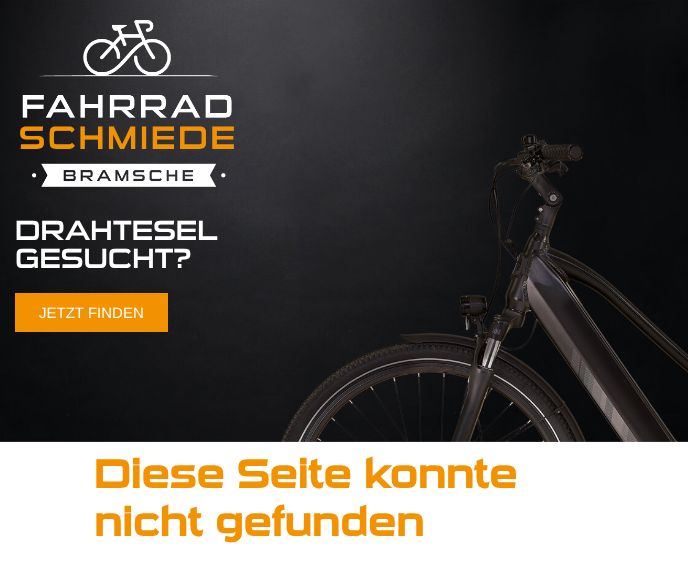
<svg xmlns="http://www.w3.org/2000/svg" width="688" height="567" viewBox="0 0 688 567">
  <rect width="100%" height="100%" fill="#fff"/>
  <image x="0" y="0" width="688" height="442" href="img/1.png"/>
  <image x="20" y="20" width="214" height="167" href="img/2.png"/>
  <path d="M15 293h153v39H15z" fill="#f39200"/>
  <g font-family="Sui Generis" font-size="28" fill="#fff">
    <text x="15" y="240">DRAHTESEL</text>
    <text x="15" y="268">GESUCHT?</text>
  </g>
  <text x="39" y="318" font-family="Liberation Sans" font-size="15" fill="#fff">JETZT FINDEN</text>
  <g font-family="Sui Generis" font-size="40" font-weight="bold" fill="#f39200">
    <text x="94" y="488">Diese Seite konnte</text>
    <text x="94" y="536">nicht gefunden</text>
  </g>
</svg>
